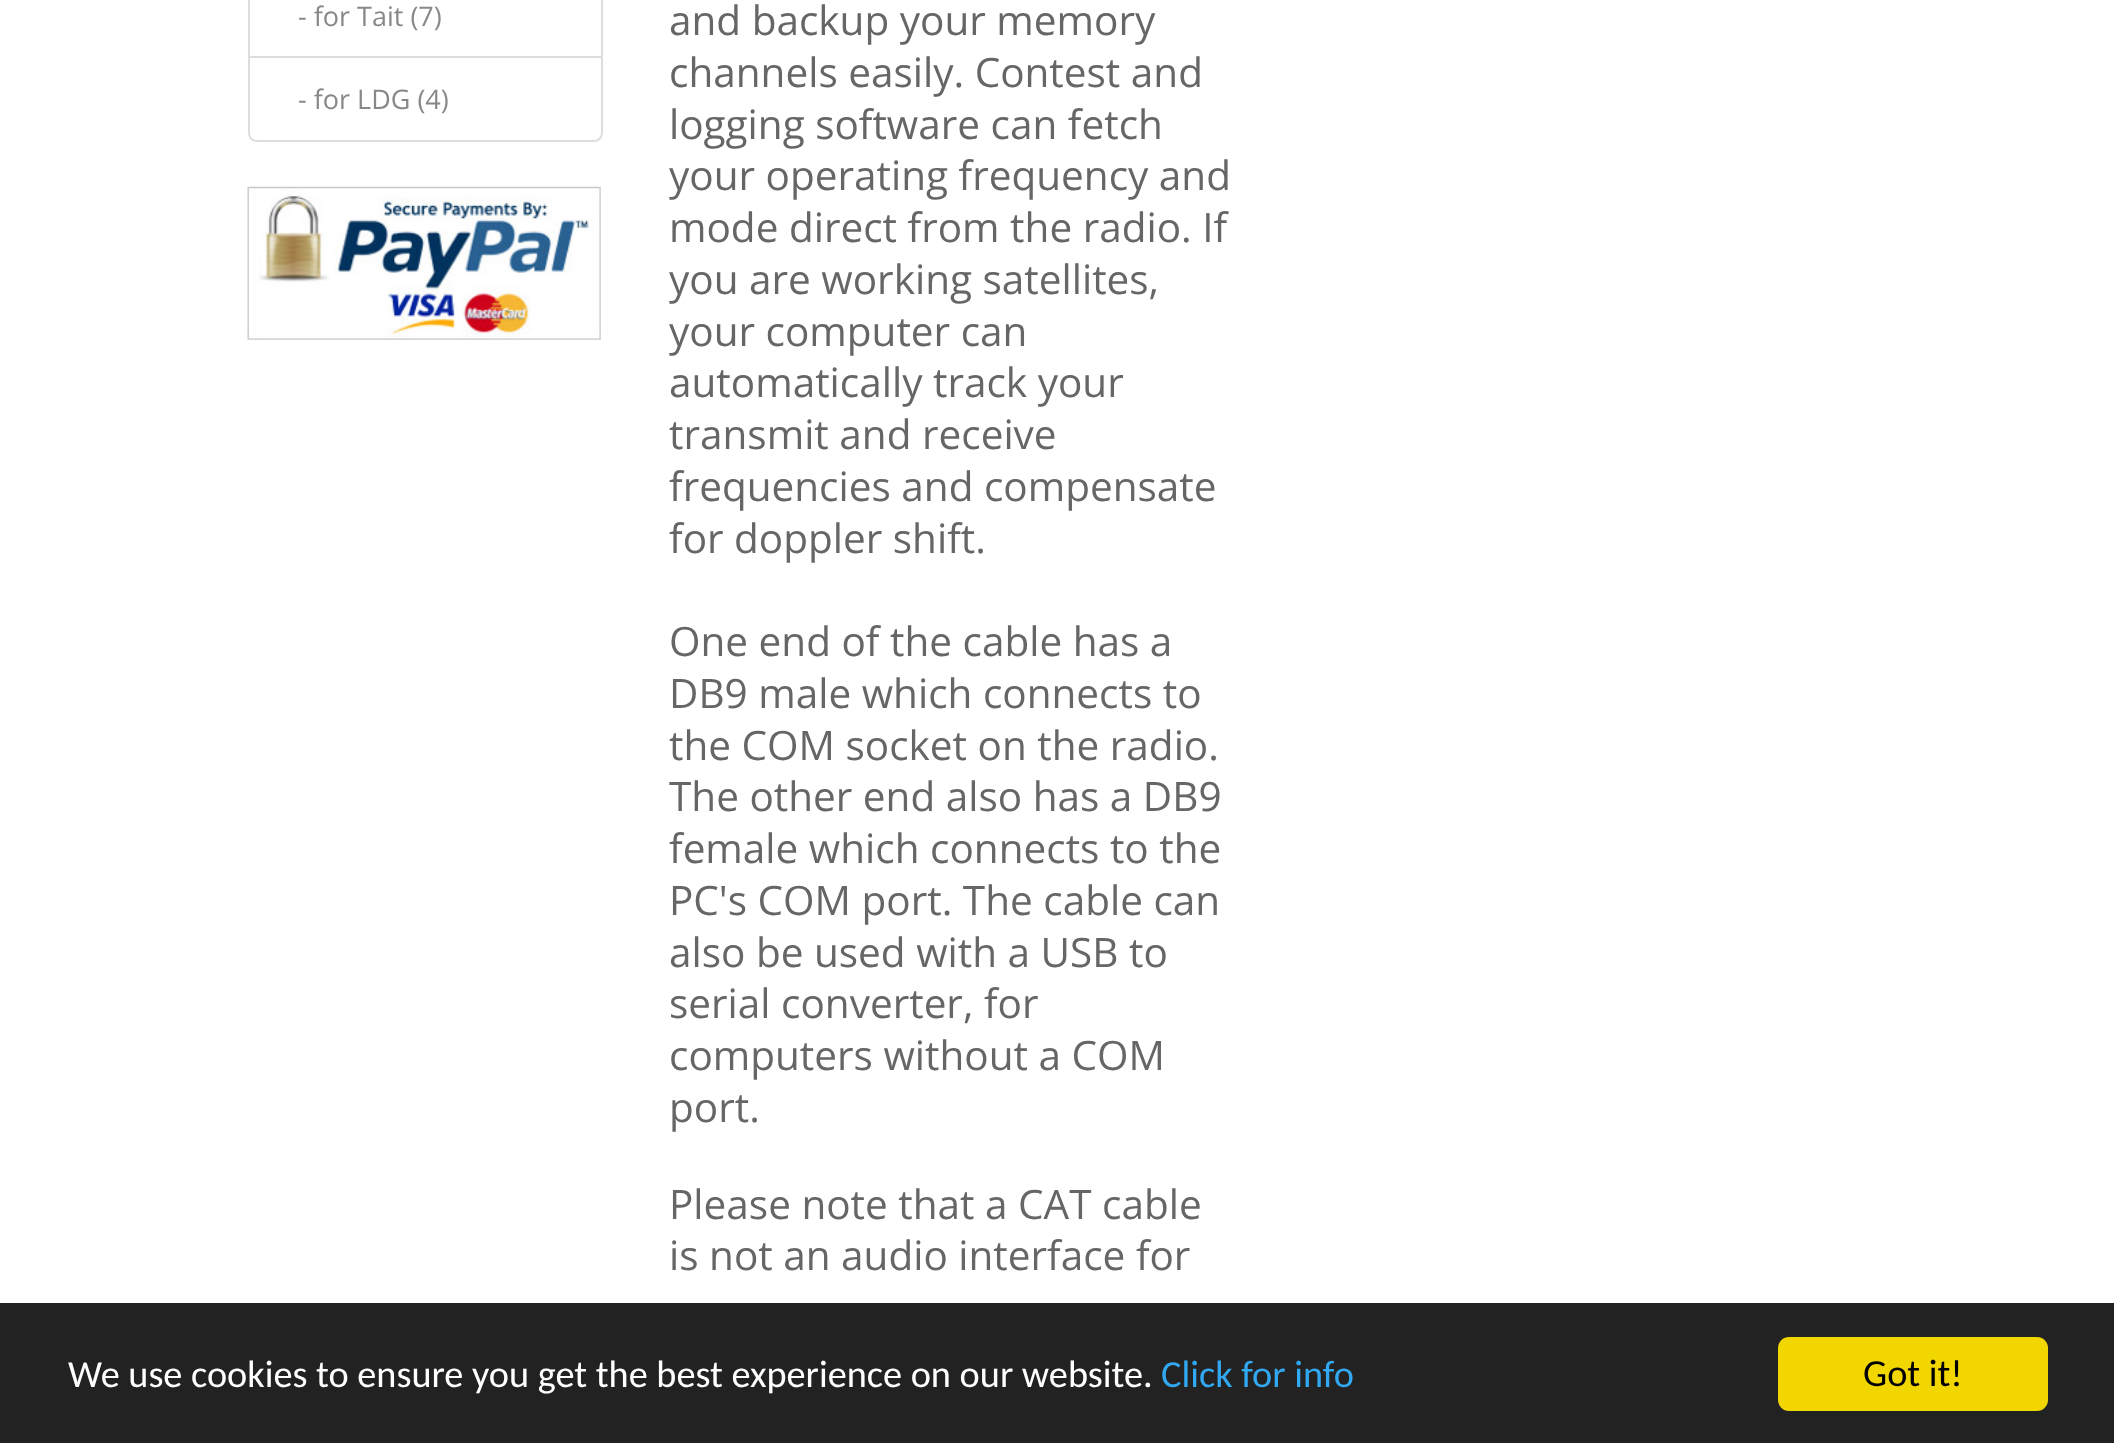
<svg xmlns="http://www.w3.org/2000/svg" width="2114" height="1443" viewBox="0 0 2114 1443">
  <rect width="100%" height="100%" fill="#fff"/>
  <path d="M249 -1h353v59H249z" fill="none" stroke="#ddd" stroke-width="2"/>
  <path d="M249 57H602V133C602 137.5 598.5 141 594 141H257C252.5 141 249 137.5 249 133Z" fill="#fff" stroke="#ddd" stroke-width="2"/>
  <image x="247" y="186" width="354" height="154" href="img/1.png"/>
  <path d="M0 1303h2114v140H0z" fill="#222"/>
  <rect x="1778" y="1337" width="270" height="74" rx="11" fill="#f1d600"/>
  <g font-family="Open Sans" font-size="27" fill="#888">
    <text x="298" y="26">- for Tait (7)</text>
    <text x="298" y="109">- for LDG (4)</text>
  </g>
  <g font-family="Open Sans" font-size="40.5" fill="#666">
    <text x="669" y="35">and backup your memory</text>
    <text x="669" y="87">channels easily. Contest and</text>
    <text x="669" y="139">logging software can fetch</text>
    <text x="669" y="190">your operating frequency and</text>
    <text x="669" y="242">mode direct from the radio. If</text>
    <text x="669" y="294">you are working satellites,</text>
    <text x="669" y="346">your computer can</text>
    <text x="669" y="397">automatically track your</text>
    <text x="669" y="449">transmit and receive</text>
    <text x="669" y="501">frequencies and compensate</text>
    <text x="669" y="553">for doppler shift.</text>
    <text x="669" y="656">One end of the cable has a</text>
    <text x="669" y="708">DB9 male which connects to</text>
    <text x="669" y="760">the COM socket on the radio.</text>
    <text x="669" y="811">The other end also has a DB9</text>
    <text x="669" y="863">female which connects to the</text>
    <text x="669" y="915">PC's COM port. The cable can</text>
    <text x="669" y="967">also be used with a USB to</text>
    <text x="669" y="1018">serial converter, for</text>
    <text x="669" y="1070">computers without a COM</text>
    <text x="669" y="1122">port.</text>
    <text x="669" y="1219">Please note that a CAT cable</text>
    <text x="669" y="1270">is not an audio interface for</text>
  </g>
  <text x="68" y="1387" font-family="Carlito" font-size="38.25" fill="#fff">We use cookies to ensure you get the best experience on our website.</text>
  <text x="1161" y="1387" font-family="Carlito" font-size="38.25" fill="#31a8f0">Click for info</text>
  <text x="1863" y="1386" font-family="Carlito" font-size="38.25" fill="#000">Got it!</text>
</svg>
